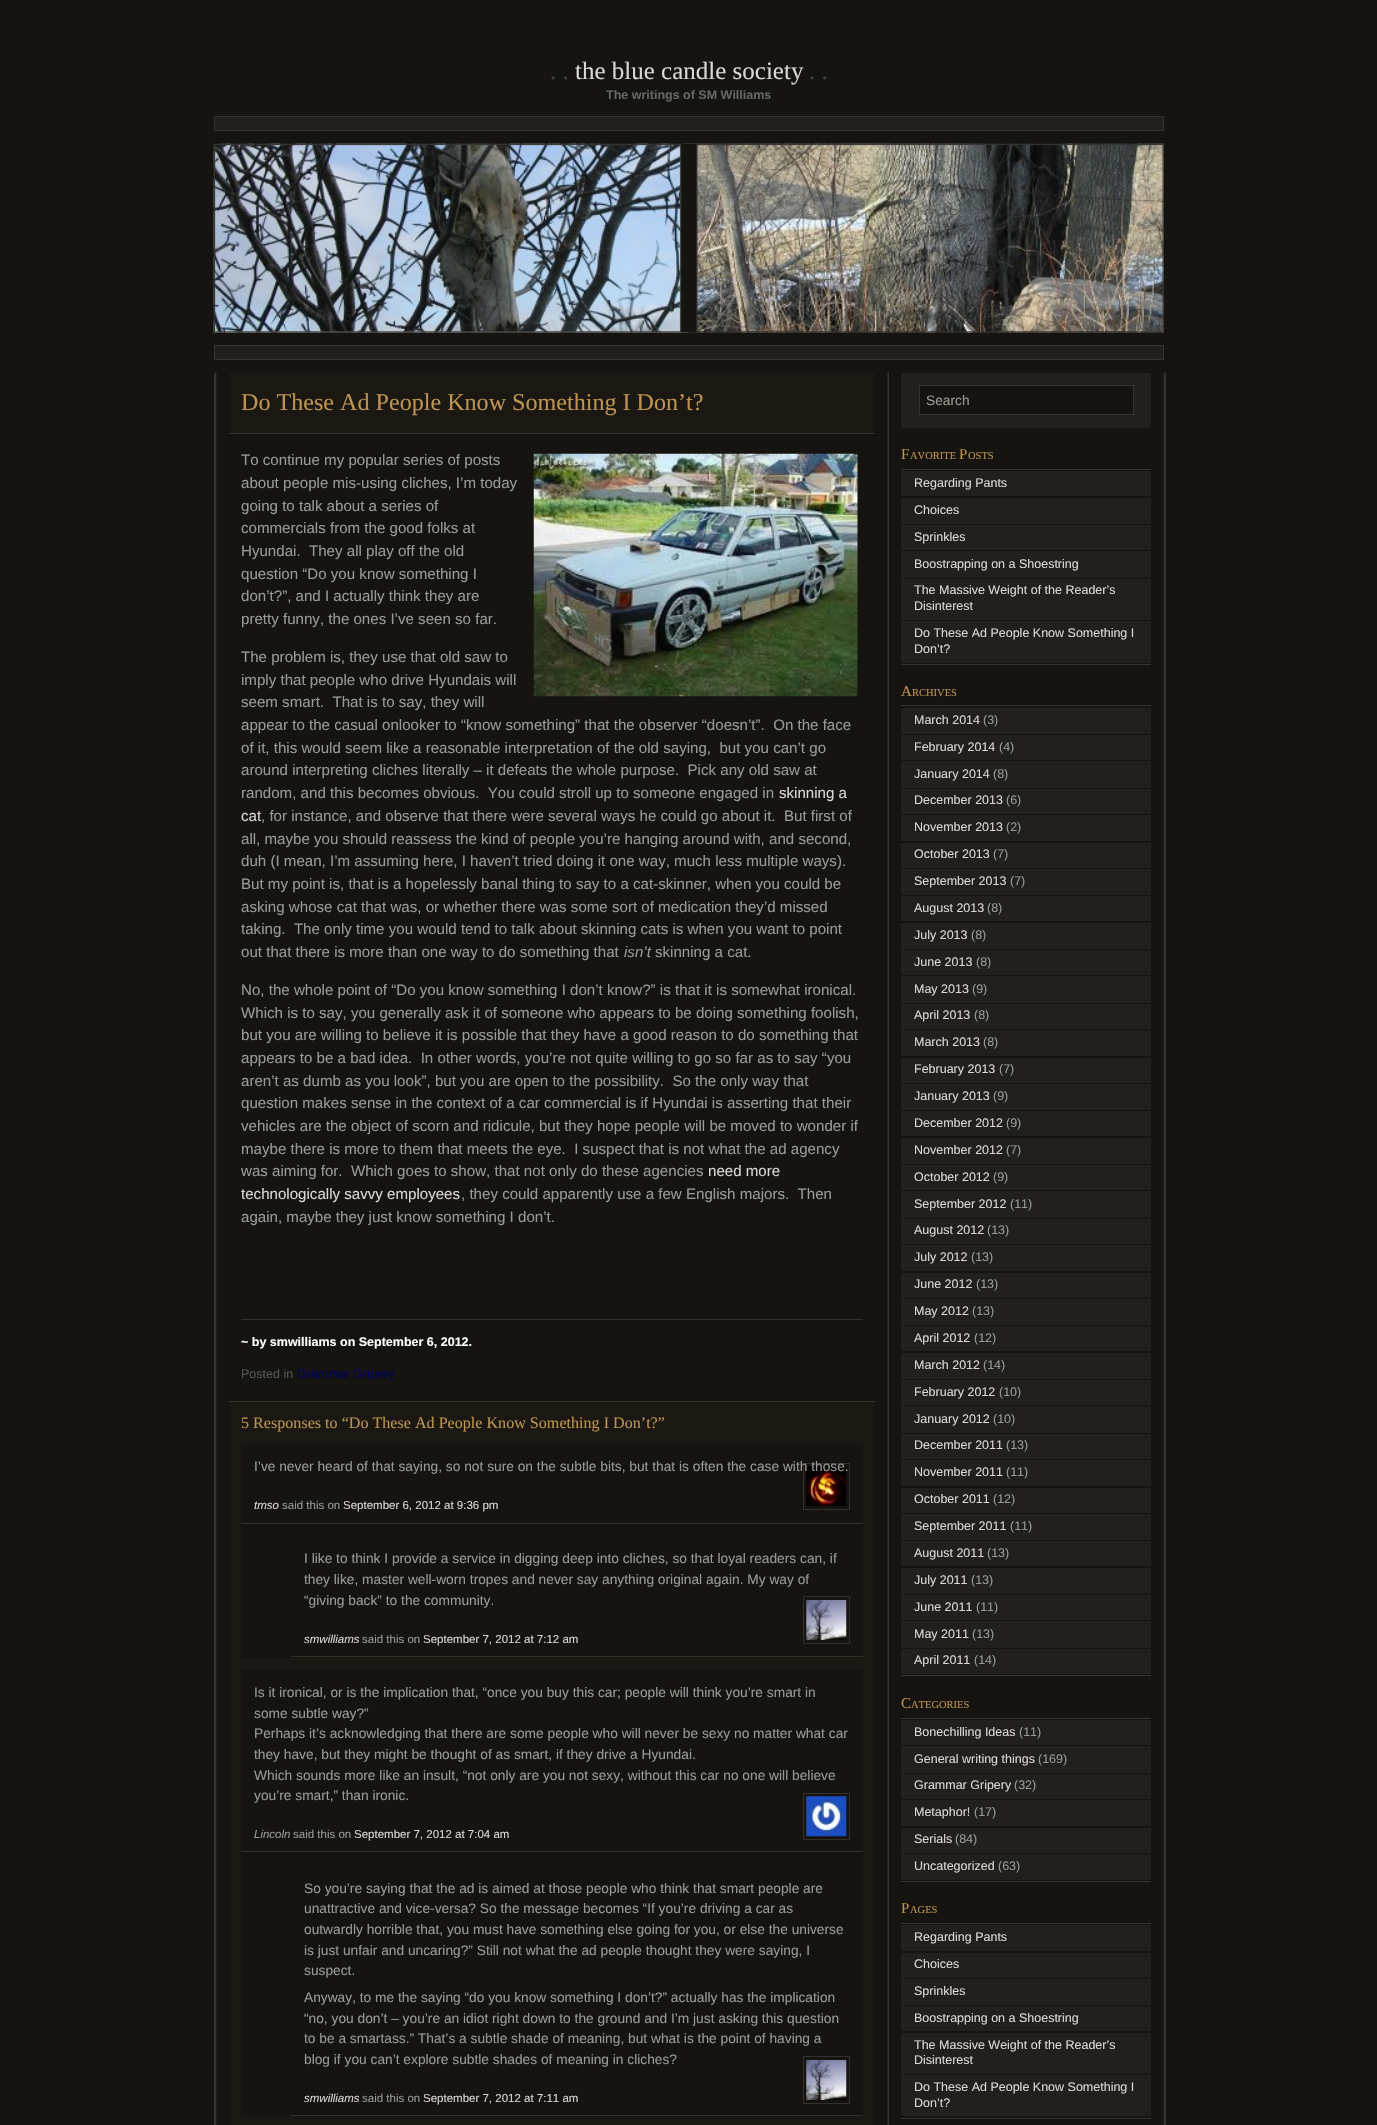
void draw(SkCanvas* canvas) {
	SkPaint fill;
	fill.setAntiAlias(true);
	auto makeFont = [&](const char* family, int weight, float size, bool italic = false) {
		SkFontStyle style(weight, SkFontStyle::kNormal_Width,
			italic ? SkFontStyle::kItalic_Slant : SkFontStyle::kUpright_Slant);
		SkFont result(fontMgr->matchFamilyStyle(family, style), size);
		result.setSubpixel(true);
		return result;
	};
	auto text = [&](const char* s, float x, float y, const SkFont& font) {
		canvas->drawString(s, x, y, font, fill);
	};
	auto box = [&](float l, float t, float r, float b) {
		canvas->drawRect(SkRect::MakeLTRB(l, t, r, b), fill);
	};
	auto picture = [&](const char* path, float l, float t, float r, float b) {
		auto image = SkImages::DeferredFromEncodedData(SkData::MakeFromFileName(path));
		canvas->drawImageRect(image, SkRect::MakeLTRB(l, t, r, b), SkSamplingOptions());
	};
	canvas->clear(0xFF161410);
	fill.setColor(0xFF22201D);
	canvas->drawRect(SkRect::MakeLTRB(214.5f, 116.5f, 1163.5f, 130.5f), fill);
	fill.setStyle(SkPaint::kStroke_Style);
	fill.setStrokeWidth(1);
	fill.setColor(0xFF363430);
	canvas->drawRect(SkRect::MakeLTRB(214.5f, 116.5f, 1163.5f, 130.5f), fill);
	picture("image0.png", 213, 143, 1164, 333);
	picture("image1.png", 213, 143, 1164, 333);
	fill.setStyle(SkPaint::kFill_Style);
	fill.setColor(0xFF22201D);
	canvas->drawRect(SkRect::MakeLTRB(214.5f, 345.5f, 1163.5f, 359.5f), fill);
	fill.setStyle(SkPaint::kStroke_Style);
	fill.setColor(0xFF363430);
	canvas->drawRect(SkRect::MakeLTRB(214.5f, 345.5f, 1163.5f, 359.5f), fill);
	picture("image2.png", 215, 372, 1165, 2125);
	fill.setStyle(SkPaint::kFill_Style);
	box(1165, 373, 1166, 2125);
	box(214, 373, 215, 2125);
	box(888, 373, 889, 2125);
	fill.setColor(0xFF1B1814);
	box(229, 373, 875, 433);
	fill.setColor(0xFF35302A);
	box(229, 433, 875, 434);
	picture("image3.png", 533, 453, 858, 697);
	box(241, 1319, 863, 1320);
	fill.setColor(0xFF1B1814);
	box(229, 1402, 875, 2125);
	fill.setColor(0xFF35302A);
	box(229, 1401, 875, 1402);
	fill.setColor(0xFF161410);
	box(241, 1444, 863, 1658);
	fill.setColor(0xFF35302A);
	box(241, 1523, 863, 1524);
	fill.setStyle(SkPaint::kStroke_Style);
	canvas->drawRect(SkRect::MakeLTRB(803.5f, 1463.5f, 849.5f, 1509.5f), fill);
	picture("image4.png", 806, 1466, 847, 1507);
	fill.setStyle(SkPaint::kFill_Style);
	box(291, 1656, 863, 1657);
	fill.setStyle(SkPaint::kStroke_Style);
	canvas->drawRect(SkRect::MakeLTRB(803.5f, 1596.5f, 849.5f, 1643.5f), fill);
	picture("image5.png", 806, 1600, 847, 1640);
	fill.setStyle(SkPaint::kFill_Style);
	fill.setColor(0xFF161410);
	box(241, 1670, 863, 2116);
	fill.setColor(0xFF35302A);
	box(241, 1851, 863, 1852);
	fill.setStyle(SkPaint::kStroke_Style);
	canvas->drawRect(SkRect::MakeLTRB(803.5f, 1793.5f, 849.5f, 1839.5f), fill);
	picture("image6.png", 806, 1796, 847, 1837);
	fill.setStyle(SkPaint::kFill_Style);
	box(291, 2115, 863, 2116);
	fill.setStyle(SkPaint::kStroke_Style);
	canvas->drawRect(SkRect::MakeLTRB(803.5f, 2056.5f, 849.5f, 2103.5f), fill);
	picture("image5.png", 806, 2060, 847, 2100);
	fill.setStyle(SkPaint::kFill_Style);
	fill.setColor(0xFF22201D);
	box(901, 373, 1151, 428);
	fill.setColor(0xFF161410);
	canvas->drawRect(SkRect::MakeLTRB(919.5f, 385.5f, 1133.5f, 414.5f), fill);
	fill.setStyle(SkPaint::kStroke_Style);
	fill.setColor(0xFF363430);
	canvas->drawRect(SkRect::MakeLTRB(919.5f, 385.5f, 1133.5f, 414.5f), fill);
	fill.setStyle(SkPaint::kFill_Style);
	box(901, 469, 1151, 470);
	box(901, 664, 1151, 665);
	fill.setColor(0xFF22201D);
	box(901, 471, 1151, 496);
	box(901, 498, 1151, 524);
	box(901, 525, 1151, 550);
	box(901, 551, 1151, 578);
	box(901, 579, 1151, 620);
	box(901, 621, 1151, 663);
	fill.setColor(0xFF363430);
	box(901, 705, 1151, 706);
	box(901, 1675, 1151, 1676);
	fill.setColor(0xFF22201D);
	box(901, 708, 1151, 734);
	box(901, 735, 1151, 760);
	box(901, 761, 1151, 788);
	box(901, 789, 1151, 814);
	box(901, 815, 1151, 841);
	box(901, 843, 1151, 868);
	box(901, 869, 1151, 895);
	box(901, 896, 1151, 921);
	box(901, 923, 1151, 949);
	box(901, 950, 1151, 975);
	box(901, 976, 1151, 1003);
	box(901, 1004, 1151, 1029);
	box(901, 1030, 1151, 1056);
	box(901, 1058, 1151, 1083);
	box(901, 1084, 1151, 1110);
	box(901, 1111, 1151, 1136);
	box(901, 1138, 1151, 1164);
	box(901, 1165, 1151, 1190);
	box(901, 1191, 1151, 1218);
	box(901, 1219, 1151, 1244);
	box(901, 1245, 1151, 1271);
	box(901, 1273, 1151, 1298);
	box(901, 1299, 1151, 1325);
	box(901, 1326, 1151, 1351);
	box(901, 1353, 1151, 1379);
	box(901, 1380, 1151, 1405);
	box(901, 1406, 1151, 1433);
	box(901, 1434, 1151, 1459);
	box(901, 1460, 1151, 1486);
	box(901, 1488, 1151, 1513);
	box(901, 1514, 1151, 1540);
	box(901, 1541, 1151, 1566);
	box(901, 1568, 1151, 1594);
	box(901, 1595, 1151, 1620);
	box(901, 1621, 1151, 1648);
	box(901, 1649, 1151, 1674);
	fill.setColor(0xFF363430);
	box(901, 1718, 1151, 1719);
	box(901, 1881, 1151, 1882);
	fill.setColor(0xFF22201D);
	box(901, 1720, 1151, 1745);
	box(901, 1746, 1151, 1773);
	box(901, 1774, 1151, 1799);
	box(901, 1800, 1151, 1826);
	box(901, 1828, 1151, 1853);
	box(901, 1854, 1151, 1880);
	fill.setColor(0xFF363430);
	box(901, 1923, 1151, 1924);
	box(901, 2118, 1151, 2119);
	fill.setColor(0xFF22201D);
	box(901, 1925, 1151, 1951);
	box(901, 1953, 1151, 1978);
	box(901, 1979, 1151, 2005);
	box(901, 2006, 1151, 2031);
	box(901, 2033, 1151, 2074);
	box(901, 2075, 1151, 2116);
	auto font1 = makeFont("Liberation Serif", 400, 25);
	fill.setColor(0xFF444444);
	text(". .", 550, 79, font1);
	fill.setColor(0xFFD8D7D3);
	text("the blue candle society", 575, 79, font1);
	fill.setColor(0xFF444444);
	text(". .", 809, 79, font1);
	auto font2 = makeFont("Liberation Sans", 700, 12.5f);
	fill.setColor(0xFF666666);
	text("The writings of SM Williams", 606, 99, font2);
	auto font3 = makeFont("Liberation Serif", 400, 24.1f);
	fill.setColor(0xFFBD934F);
	text("Do These Ad People Know Something I Don’t?", 241, 410, font3);
	auto font4 = makeFont("Liberation Sans", 400, 15.1f);
	fill.setColor(0xFF999999);
	text("To continue my popular series of posts", 241, 465, font4);
	text("about people mis-using cliches, I’m today", 241, 488, font4);
	text("going to talk about a series of", 241, 511, font4);
	text("commercials from the good folks at", 241, 533, font4);
	text("Hyundai.  They all play off the old", 241, 556, font4);
	text("question “Do you know something I", 241, 579, font4);
	text("don’t?”, and I actually think they are", 241, 601, font4);
	text("pretty funny, the ones I’ve seen so far.", 241, 624, font4);
	text("The problem is, they use that old saw to", 241, 662, font4);
	text("imply that people who drive Hyundais will", 241, 685, font4);
	text("seem smart.  That is to say, they will", 241, 707, font4);
	text("appear to the casual onlooker to “know something” that the observer “doesn’t”.  On the face", 241, 730, font4);
	text("of it, this would seem like a reasonable interpretation of the old saying,  but you can’t go", 241, 753, font4);
	text("around interpreting cliches literally – it defeats the whole purpose.  Pick any old saw at", 241, 775, font4);
	text("random, and this becomes obvious.  You could stroll up to someone engaged in", 241, 798, font4);
	fill.setColor(0xFFD8D7D3);
	text("skinning a", 779, 798, font4);
	text("cat", 241, 821, font4);
	fill.setColor(0xFF999999);
	text(", for instance, and observe that there were several ways he could go about it.  But first of", 261, 821, font4);
	text("all, maybe you should reassess the kind of people you’re hanging around with, and second,", 241, 844, font4);
	text("duh (I mean, I’m assuming here, I haven’t tried doing it one way, much less multiple ways).", 241, 866, font4);
	text("But my point is, that is a hopelessly banal thing to say to a cat-skinner, when you could be", 241, 889, font4);
	text("asking whose cat that was, or whether there was some sort of medication they’d missed", 241, 912, font4);
	text("taking.  The only time you would tend to talk about skinning cats is when you want to point", 241, 934, font4);
	text("out that there is more than one way to do something that", 241, 957, font4);
	auto font5 = makeFont("Liberation Sans", 400, 15.1f, true);
	text("isn’t", 624, 957, font5);
	text("skinning a cat.", 655, 957, font4);
	text("No, the whole point of “Do you know something I don’t know?” is that it is somewhat ironical.", 241, 995, font4);
	text("Which is to say, you generally ask it of someone who appears to be doing something foolish,", 241, 1018, font4);
	text("but you are willing to believe it is possible that they have a good reason to do something that", 241, 1040, font4);
	text("appears to be a bad idea.  In other words, you’re not quite willing to go so far as to say “you", 241, 1063, font4);
	text("aren’t as dumb as you look”, but you are open to the possibility.  So the only way that", 241, 1086, font4);
	text("question makes sense in the context of a car commercial is if Hyundai is asserting that their", 241, 1108, font4);
	text("vehicles are the object of scorn and ridicule, but they hope people will be moved to wonder if", 241, 1131, font4);
	text("maybe there is more to them that meets the eye.  I suspect that is not what the ad agency", 241, 1154, font4);
	text("was aiming for.  Which goes to show, that not only do these agencies", 241, 1176, font4);
	fill.setColor(0xFFD8D7D3);
	text("need more", 708, 1176, font4);
	text("technologically savvy employees", 241, 1199, font4);
	fill.setColor(0xFF999999);
	text(", they could apparently use a few English majors.  Then", 461, 1199, font4);
	text("again, maybe they just know something I don’t.", 241, 1222, font4);
	fill.setColor(0xFFFFFFFF);
	text("~ by smwilliams on September 6, 2012.", 241, 1346, font2);
	auto font6 = makeFont("Liberation Sans", 400, 12.5f);
	fill.setColor(0xFF555555);
	text("Posted in", 241, 1378, font6);
	fill.setColor(0xFF000066);
	text("Grammar Gripery", 297, 1378, font6);
	auto font7 = makeFont("Liberation Serif", 400, 16.1f);
	fill.setColor(0xFFBD934F);
	text("5 Responses to “Do These Ad People Know Something I Don’t?”", 241, 1428, font7);
	auto font8 = makeFont("Liberation Sans", 400, 13.75f);
	fill.setColor(0xFF999999);
	text("I’ve never heard of that saying, so not sure on the subtle bits, but that is often the case with those.", 254, 1471, font8);
	auto font9 = makeFont("Liberation Sans", 400, 11.5f, true);
	fill.setColor(0xFFD8D7D3);
	text("tmso", 254, 1509, font9);
	auto font10 = makeFont("Liberation Sans", 400, 11.5f);
	fill.setColor(0xFF999999);
	text("said this on", 282, 1509, font10);
	fill.setColor(0xFFD8D7D3);
	text("September 6, 2012 at 9:36 pm", 343, 1509, font10);
	fill.setColor(0xFF999999);
	text("I like to think I provide a service in digging deep into cliches, so that loyal readers can, if", 304, 1563, font8);
	text("they like, master well-worn tropes and never say anything original again. My way of", 304, 1584, font8);
	text("“giving back” to the community.", 304, 1605, font8);
	fill.setColor(0xFFD8D7D3);
	text("smwilliams", 304, 1643, font9);
	fill.setColor(0xFF999999);
	text("said this on", 362, 1643, font10);
	fill.setColor(0xFFD8D7D3);
	text("September 7, 2012 at 7:12 am", 423, 1643, font10);
	fill.setColor(0xFF999999);
	text("Is it ironical, or is the implication that, “once you buy this car; people will think you’re smart in", 254, 1697, font8);
	text("some subtle way?”", 254, 1718, font8);
	text("Perhaps it’s acknowledging that there are some people who will never be sexy no matter what car", 254, 1738, font8);
	text("they have, but they might be thought of as smart, if they drive a Hyundai.", 254, 1759, font8);
	text("Which sounds more like an insult, “not only are you not sexy, without this car no one will believe", 254, 1780, font8);
	text("you’re smart,” than ironic.", 254, 1800, font8);
	text("Lincoln", 254, 1838, font9);
	text("said this on", 293, 1838, font10);
	fill.setColor(0xFFD8D7D3);
	text("September 7, 2012 at 7:04 am", 354, 1838, font10);
	fill.setColor(0xFF999999);
	text("So you’re saying that the ad is aimed at those people who think that smart people are", 304, 1893, font8);
	text("unattractive and vice-versa? So the message becomes “If you’re driving a car as", 304, 1913, font8);
	text("outwardly horrible that, you must have something else going for you, or else the universe", 304, 1934, font8);
	text("is just unfair and uncaring?” Still not what the ad people thought they were saying, I", 304, 1955, font8);
	text("suspect.", 304, 1975, font8);
	text("Anyway, to me the saying “do you know something I don’t?” actually has the implication", 304, 2002, font8);
	text("“no, you don’t – you’re an idiot right down to the ground and I’m just asking this question", 304, 2023, font8);
	text("to be a smartass.” That’s a subtle shade of meaning, but what is the point of having a", 304, 2043, font8);
	text("blog if you can’t explore subtle shades of meaning in cliches?", 304, 2064, font8);
	fill.setColor(0xFFD8D7D3);
	text("smwilliams", 304, 2102, font9);
	fill.setColor(0xFF999999);
	text("said this on", 362, 2102, font10);
	fill.setColor(0xFFD8D7D3);
	text("September 7, 2012 at 7:11 am", 423, 2102, font10);
	fill.setColor(0xFF9C9890);
	text("Search", 926, 405, font8);
	auto font11 = makeFont("Liberation Serif", 400, 15);
	fill.setColor(0xFFBD934F);
	text("F", 901, 459, font11);
	auto font12 = makeFont("Liberation Serif", 400, 10.5f);
	text("AVORITE", 910, 459, font12);
	text("P", 959, 459, font11);
	text("OSTS", 968, 459, font12);
	fill.setColor(0xFFD8D7D3);
	text("Regarding Pants", 914, 487, font6);
	text("Choices", 914, 514, font6);
	text("Sprinkles", 914, 541, font6);
	text("Boostrapping on a Shoestring", 914, 568, font6);
	text("The Massive Weight of the Reader’s", 914, 594, font6);
	text("Disinterest", 914, 610, font6);
	text("Do These Ad People Know Something I", 914, 637, font6);
	text("Don’t?", 914, 653, font6);
	fill.setColor(0xFFBD934F);
	text("A", 901, 696, font11);
	text("RCHIVES", 912, 696, font12);
	fill.setColor(0xFFD8D7D3);
	text("March 2014", 914, 724, font6);
	fill.setColor(0xFF999999);
	text("(3)", 983, 724, font6);
	fill.setColor(0xFFD8D7D3);
	text("February 2014", 914, 751, font6);
	fill.setColor(0xFF999999);
	text("(4)", 999, 751, font6);
	fill.setColor(0xFFD8D7D3);
	text("January 2014", 914, 778, font6);
	fill.setColor(0xFF999999);
	text("(8)", 993, 778, font6);
	fill.setColor(0xFFD8D7D3);
	text("December 2013", 914, 804, font6);
	fill.setColor(0xFF999999);
	text("(6)", 1006, 804, font6);
	fill.setColor(0xFFD8D7D3);
	text("November 2013", 914, 831, font6);
	fill.setColor(0xFF999999);
	text("(2)", 1006, 831, font6);
	fill.setColor(0xFFD8D7D3);
	text("October 2013", 914, 858, font6);
	fill.setColor(0xFF999999);
	text("(7)", 993, 858, font6);
	fill.setColor(0xFFD8D7D3);
	text("September 2013", 914, 885, font6);
	fill.setColor(0xFF999999);
	text("(7)", 1010, 885, font6);
	fill.setColor(0xFFD8D7D3);
	text("August 2013", 914, 912, font6);
	fill.setColor(0xFF999999);
	text("(8)", 987, 912, font6);
	fill.setColor(0xFFD8D7D3);
	text("July 2013", 914, 939, font6);
	fill.setColor(0xFF999999);
	text("(8)", 971, 939, font6);
	fill.setColor(0xFFD8D7D3);
	text("June 2013", 914, 966, font6);
	fill.setColor(0xFF999999);
	text("(8)", 976, 966, font6);
	fill.setColor(0xFFD8D7D3);
	text("May 2013", 914, 993, font6);
	fill.setColor(0xFF999999);
	text("(9)", 972, 993, font6);
	fill.setColor(0xFFD8D7D3);
	text("April 2013", 914, 1019, font6);
	fill.setColor(0xFF999999);
	text("(8)", 974, 1019, font6);
	fill.setColor(0xFFD8D7D3);
	text("March 2013", 914, 1046, font6);
	fill.setColor(0xFF999999);
	text("(8)", 983, 1046, font6);
	fill.setColor(0xFFD8D7D3);
	text("February 2013", 914, 1073, font6);
	fill.setColor(0xFF999999);
	text("(7)", 999, 1073, font6);
	fill.setColor(0xFFD8D7D3);
	text("January 2013", 914, 1100, font6);
	fill.setColor(0xFF999999);
	text("(9)", 993, 1100, font6);
	fill.setColor(0xFFD8D7D3);
	text("December 2012", 914, 1127, font6);
	fill.setColor(0xFF999999);
	text("(9)", 1006, 1127, font6);
	fill.setColor(0xFFD8D7D3);
	text("November 2012", 914, 1154, font6);
	fill.setColor(0xFF999999);
	text("(7)", 1006, 1154, font6);
	fill.setColor(0xFFD8D7D3);
	text("October 2012", 914, 1181, font6);
	fill.setColor(0xFF999999);
	text("(9)", 993, 1181, font6);
	fill.setColor(0xFFD8D7D3);
	text("September 2012", 914, 1208, font6);
	fill.setColor(0xFF999999);
	text("(11)", 1010, 1208, font6);
	fill.setColor(0xFFD8D7D3);
	text("August 2012", 914, 1234, font6);
	fill.setColor(0xFF999999);
	text("(13)", 987, 1234, font6);
	fill.setColor(0xFFD8D7D3);
	text("July 2012", 914, 1261, font6);
	fill.setColor(0xFF999999);
	text("(13)", 971, 1261, font6);
	fill.setColor(0xFFD8D7D3);
	text("June 2012", 914, 1288, font6);
	fill.setColor(0xFF999999);
	text("(13)", 976, 1288, font6);
	fill.setColor(0xFFD8D7D3);
	text("May 2012", 914, 1315, font6);
	fill.setColor(0xFF999999);
	text("(13)", 972, 1315, font6);
	fill.setColor(0xFFD8D7D3);
	text("April 2012", 914, 1342, font6);
	fill.setColor(0xFF999999);
	text("(12)", 974, 1342, font6);
	fill.setColor(0xFFD8D7D3);
	text("March 2012", 914, 1369, font6);
	fill.setColor(0xFF999999);
	text("(14)", 983, 1369, font6);
	fill.setColor(0xFFD8D7D3);
	text("February 2012", 914, 1396, font6);
	fill.setColor(0xFF999999);
	text("(10)", 999, 1396, font6);
	fill.setColor(0xFFD8D7D3);
	text("January 2012", 914, 1423, font6);
	fill.setColor(0xFF999999);
	text("(10)", 993, 1423, font6);
	fill.setColor(0xFFD8D7D3);
	text("December 2011", 914, 1449, font6);
	fill.setColor(0xFF999999);
	text("(13)", 1006, 1449, font6);
	fill.setColor(0xFFD8D7D3);
	text("November 2011", 914, 1476, font6);
	fill.setColor(0xFF999999);
	text("(11)", 1006, 1476, font6);
	fill.setColor(0xFFD8D7D3);
	text("October 2011", 914, 1503, font6);
	fill.setColor(0xFF999999);
	text("(12)", 993, 1503, font6);
	fill.setColor(0xFFD8D7D3);
	text("September 2011", 914, 1530, font6);
	fill.setColor(0xFF999999);
	text("(11)", 1010, 1530, font6);
	fill.setColor(0xFFD8D7D3);
	text("August 2011", 914, 1557, font6);
	fill.setColor(0xFF999999);
	text("(13)", 987, 1557, font6);
	fill.setColor(0xFFD8D7D3);
	text("July 2011", 914, 1584, font6);
	fill.setColor(0xFF999999);
	text("(13)", 971, 1584, font6);
	fill.setColor(0xFFD8D7D3);
	text("June 2011", 914, 1611, font6);
	fill.setColor(0xFF999999);
	text("(11)", 976, 1611, font6);
	fill.setColor(0xFFD8D7D3);
	text("May 2011", 914, 1638, font6);
	fill.setColor(0xFF999999);
	text("(13)", 972, 1638, font6);
	fill.setColor(0xFFD8D7D3);
	text("April 2011", 914, 1664, font6);
	fill.setColor(0xFF999999);
	text("(14)", 974, 1664, font6);
	fill.setColor(0xFFBD934F);
	text("C", 901, 1708, font11);
	text("ATEGORIES", 911, 1708, font12);
	fill.setColor(0xFFD8D7D3);
	text("Bonechilling Ideas", 914, 1736, font6);
	fill.setColor(0xFF999999);
	text("(11)", 1019, 1736, font6);
	fill.setColor(0xFFD8D7D3);
	text("General writing things", 914, 1763, font6);
	fill.setColor(0xFF999999);
	text("(169)", 1038, 1763, font6);
	fill.setColor(0xFFD8D7D3);
	text("Grammar Gripery", 914, 1789, font6);
	fill.setColor(0xFF999999);
	text("(32)", 1014, 1789, font6);
	fill.setColor(0xFFD8D7D3);
	text("Metaphor!", 914, 1816, font6);
	fill.setColor(0xFF999999);
	text("(17)", 974, 1816, font6);
	fill.setColor(0xFFD8D7D3);
	text("Serials", 914, 1843, font6);
	fill.setColor(0xFF999999);
	text("(84)", 955, 1843, font6);
	fill.setColor(0xFFD8D7D3);
	text("Uncategorized", 914, 1870, font6);
	fill.setColor(0xFF999999);
	text("(63)", 998, 1870, font6);
	fill.setColor(0xFFBD934F);
	text("P", 901, 1913, font11);
	text("AGES", 910, 1913, font12);
	fill.setColor(0xFFD8D7D3);
	text("Regarding Pants", 914, 1941, font6);
	text("Choices", 914, 1968, font6);
	text("Sprinkles", 914, 1995, font6);
	text("Boostrapping on a Shoestring", 914, 2022, font6);
	text("The Massive Weight of the Reader’s", 914, 2049, font6);
	text("Disinterest", 914, 2064, font6);
	text("Do These Ad People Know Something I", 914, 2091, font6);
	text("Don’t?", 914, 2107, font6);
}
